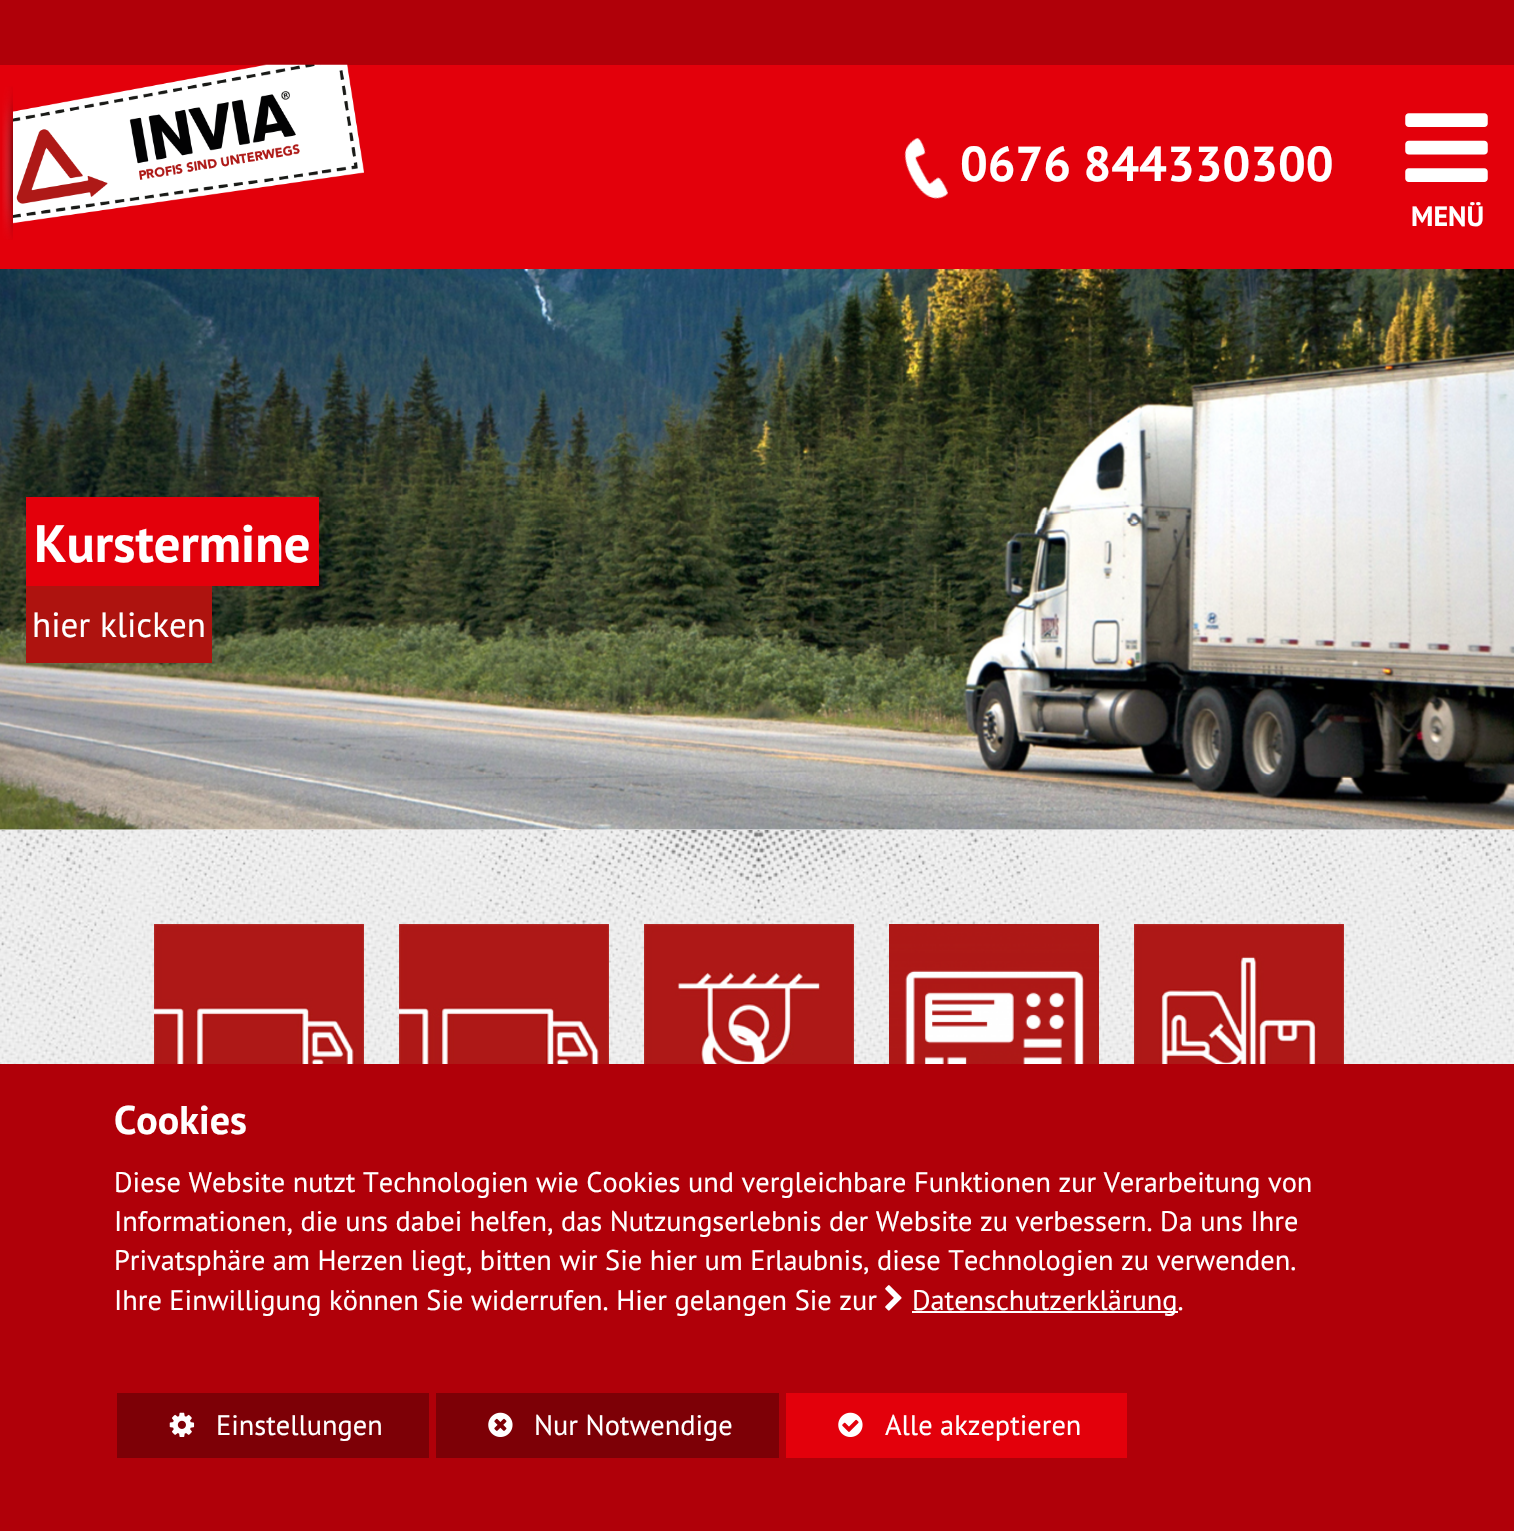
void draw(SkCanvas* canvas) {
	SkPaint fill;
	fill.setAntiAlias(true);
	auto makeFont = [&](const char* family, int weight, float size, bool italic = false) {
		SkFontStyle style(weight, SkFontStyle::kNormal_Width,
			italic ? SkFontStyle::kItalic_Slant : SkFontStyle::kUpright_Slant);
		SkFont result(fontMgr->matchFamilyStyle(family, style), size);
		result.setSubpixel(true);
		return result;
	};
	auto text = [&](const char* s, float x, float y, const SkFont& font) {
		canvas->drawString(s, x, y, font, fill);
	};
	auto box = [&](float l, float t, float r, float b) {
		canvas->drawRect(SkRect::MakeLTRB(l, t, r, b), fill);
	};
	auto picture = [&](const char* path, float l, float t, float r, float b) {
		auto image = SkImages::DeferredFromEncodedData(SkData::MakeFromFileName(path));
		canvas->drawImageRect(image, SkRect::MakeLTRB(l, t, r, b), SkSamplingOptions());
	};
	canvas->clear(0xFFE3000B);
	fill.setColor(0xFFB00009);
	box(0, 0, 1514, 65);
	picture("image0.png", 2, 64, 364, 240);
	picture("image1.png", 904, 137, 948, 199);
	picture("image2.png", 1405, 113, 1488, 182);
	fill.setColor(0xFFFFFFFF);
	box(0, 829, 1514, 830);
	picture("image3.png", 0, 269, 1514, 830);
	fill.setColor(0xFFE3000B);
	box(26, 497, 319, 586);
	fill.setColor(0xFFAE130F);
	box(26, 586, 212, 663);
	picture("image4.png", 0, 830, 1514, 1064);
	picture("image5.png", 154, 924, 364, 1064);
	picture("image5.png", 399, 924, 609, 1064);
	picture("image6.png", 644, 924, 854, 1064);
	picture("image7.png", 889, 924, 1099, 1064);
	picture("image8.png", 1134, 924, 1344, 1064);
	fill.setColor(0xFFB00009);
	box(0, 1064, 1514, 1531);
	picture("image9.png", 885, 1285, 902, 1311);
	fill.setColor(0xFFFFFFFF);
	box(912, 1311, 1178, 1313);
	fill.setColor(0xFF7D0006);
	box(117, 1393, 429, 1458);
	picture("image10.png", 169, 1412, 195, 1437);
	box(436, 1393, 779, 1458);
	picture("image11.png", 488, 1412, 513, 1437);
	fill.setColor(0xFFE3000B);
	box(786, 1393, 1127, 1458);
	picture("image12.png", 838, 1412, 863, 1437);
	auto font1 = makeFont("PT Sans", 700, 49);
	fill.setColor(0xFFFFFFFF);
	text("0676 844330300", 960, 181, font1);
	auto font2 = makeFont("PT Sans", 700, 28);
	text("MENÜ", 1411, 226, font2);
	auto font3 = makeFont("PT Sans", 700, 52.5f);
	text("Kurstermine", 34, 562, font3);
	auto font4 = makeFont("PT Sans", 400, 35);
	text("hier", 32, 637, font4);
	text("klicken", 100, 637, font4);
	auto font5 = makeFont("PT Sans", 700, 40);
	text("Cookies", 114, 1134, font5);
	auto font6 = makeFont("PT Sans", 400, 28.35f);
	text("Diese Website nutzt Technologien wie Cookies und vergleichbare Funktionen zur Verarbeitung von", 114, 1192, font6);
	text("Informationen, die uns dabei helfen, das Nutzungserlebnis der Website zu verbessern. Da uns Ihre", 114, 1231, font6);
	text("Privatsphäre am Herzen liegt, bitten wir Sie hier um Erlaubnis, diese Technologien zu verwenden.", 114, 1270, font6);
	text("Ihre Einwilligung können Sie widerrufen. Hier gelangen Sie zur", 114, 1310, font6);
	text("Datenschutzerklärung.", 912, 1310, font6);
	text("Einstellungen", 216, 1435, font6);
	text("Nur Notwendige", 534, 1435, font6);
	text("Alle akzeptieren", 885, 1435, font6);
}
